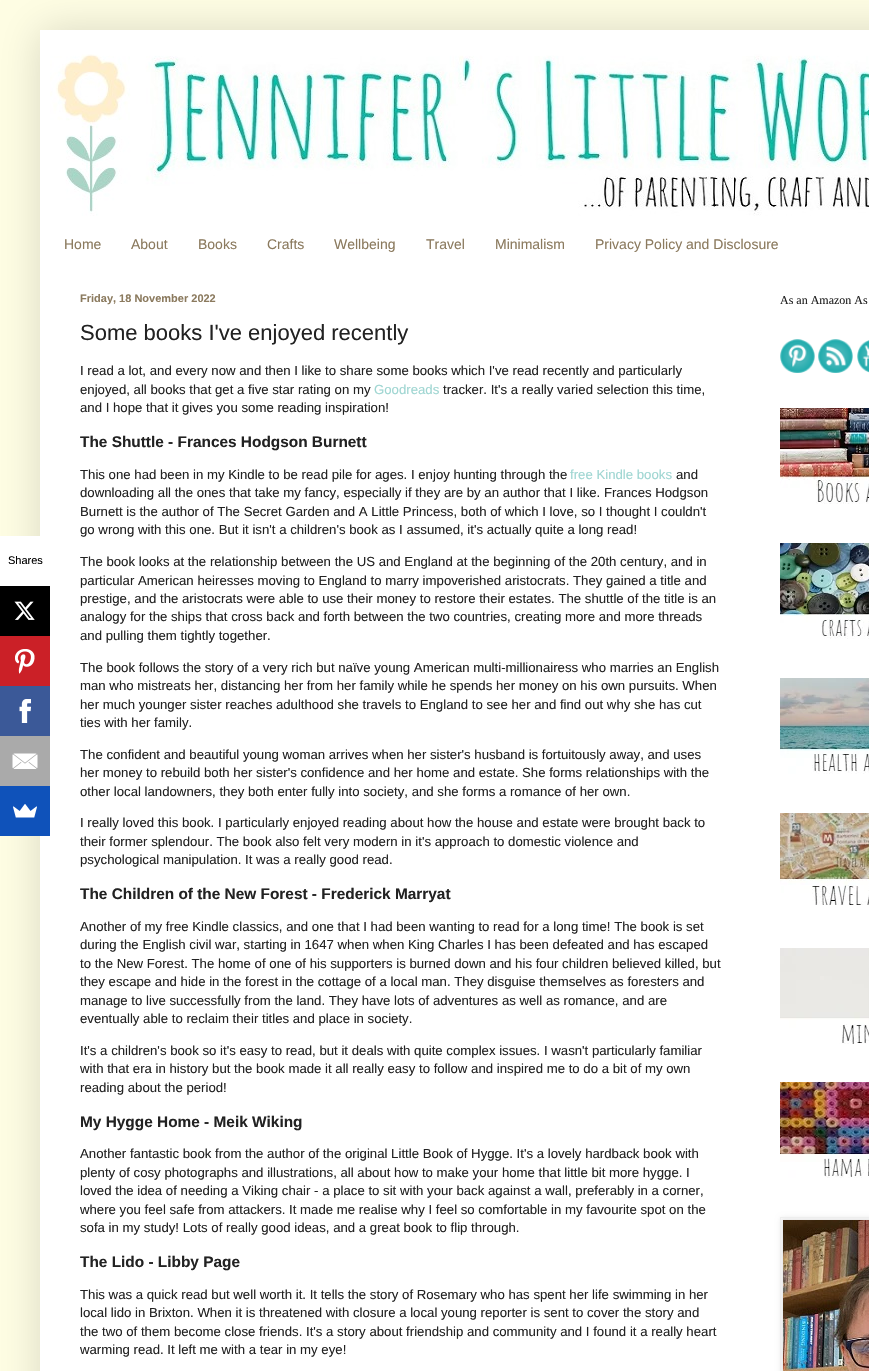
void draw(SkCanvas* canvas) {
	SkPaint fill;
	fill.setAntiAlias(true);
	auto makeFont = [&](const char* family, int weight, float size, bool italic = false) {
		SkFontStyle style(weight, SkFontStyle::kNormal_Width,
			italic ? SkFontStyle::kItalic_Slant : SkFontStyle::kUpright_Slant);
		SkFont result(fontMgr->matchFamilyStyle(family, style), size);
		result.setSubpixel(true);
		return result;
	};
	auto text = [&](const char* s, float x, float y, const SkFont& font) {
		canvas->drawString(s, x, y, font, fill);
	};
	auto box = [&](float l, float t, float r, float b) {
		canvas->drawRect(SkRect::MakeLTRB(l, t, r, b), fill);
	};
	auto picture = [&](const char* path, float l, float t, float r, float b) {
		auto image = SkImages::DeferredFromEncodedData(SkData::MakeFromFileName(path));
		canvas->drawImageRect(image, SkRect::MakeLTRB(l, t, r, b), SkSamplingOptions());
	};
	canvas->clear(0xFFFFFEE4);
	fill.setColor(0x26000000);
	fill.setMaskFilter(SkMaskFilter::MakeBlur(kNormal_SkBlurStyle, 20));
	canvas->drawRect(SkRect::MakeLTRB(40, 30, 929, 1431), fill);
	fill.setMaskFilter(nullptr);
	fill.setColor(0xFFFFFFFF);
	box(0, 536, 40, 586);
	box(40, 30, 869, 1371);
	fill.setColor(0xFF000000);
	box(0, 586, 50, 636);
	picture("image0.png", 14, 601, 35, 620);
	fill.setColor(0xFFCB2027);
	box(0, 636, 50, 686);
	picture("image1.png", 15, 649, 35, 674);
	fill.setColor(0xFF3B5998);
	box(0, 686, 50, 736);
	picture("image2.png", 19, 699, 31, 723);
	fill.setColor(0xFFAAAAAA);
	box(0, 736, 50, 786);
	picture("image3.png", 12, 753, 38, 769);
	fill.setColor(0xFF0F52BA);
	box(0, 786, 50, 836);
	picture("image4.png", 13, 804, 37, 818);
	picture("image5.png", 50, 54, 869, 216);
	picture("image6.png", 780, 339, 815, 373);
	picture("image7.png", 818, 339, 853, 373);
	picture("image8.png", 857, 340, 869, 373);
	picture("image9.png", 780, 408, 869, 504);
	picture("image10.png", 780, 543, 869, 639);
	picture("image11.png", 780, 678, 869, 774);
	picture("image12.png", 780, 813, 869, 905);
	picture("image13.png", 780, 948, 869, 1044);
	picture("image14.png", 780, 1082, 869, 1178);
	fill.setColor(0x1A000000);
	fill.setMaskFilter(SkMaskFilter::MakeBlur(kNormal_SkBlurStyle, 2.5f));
	canvas->drawRect(SkRect::MakeLTRB(781, 1218, 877, 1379), fill);
	fill.setMaskFilter(nullptr);
	fill.setStyle(SkPaint::kStroke_Style);
	fill.setStrokeWidth(1);
	fill.setColor(0xFFEEEEEE);
	canvas->drawRect(SkRect::MakeLTRB(780.5f, 1217.5f, 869.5f, 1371.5f), fill);
	picture("image15.png", 783, 1220, 869, 1371);
	auto font1 = makeFont("Liberation Sans", 400, 11);
	fill.setStyle(SkPaint::kFill_Style);
	fill.setColor(0xFF000000);
	text("Shares", 8, 564, font1);
	auto font2 = makeFont("Liberation Sans", 400, 14);
	fill.setColor(0xFF8B7A5E);
	text("Home", 64, 249, font2);
	text("About", 131, 249, font2);
	text("Books", 198, 249, font2);
	text("Crafts", 267, 249, font2);
	text("Wellbeing", 334, 249, font2);
	text("Travel", 426, 249, font2);
	text("Minimalism", 495, 249, font2);
	text("Privacy Policy and Disclosure", 595, 249, font2);
	auto font3 = makeFont("Liberation Sans", 700, 11);
	text("Friday, 18 November 2022", 80, 302, font3);
	auto font4 = makeFont("Liberation Sans", 400, 22);
	fill.setColor(0xFF222222);
	text("Some books I've enjoyed recently", 80, 340, font4);
	auto font5 = makeFont("Liberation Sans", 400, 13.2f);
	text("I read a lot, and every now and then I like to share some books which I've read recently and particularly", 80, 375, font5);
	text("enjoyed, all books that get a five star rating on my", 80, 394, font5);
	fill.setColor(0xFF9FD6D2);
	text("Goodreads", 374, 394, font5);
	fill.setColor(0xFF222222);
	text("tracker. It's a really varied selection this time,", 443, 394, font5);
	text("and I hope that it gives you some reading inspiration!", 80, 412, font5);
	auto font6 = makeFont("Liberation Sans", 700, 15.4f);
	text("The Shuttle - Frances Hodgson Burnett", 80, 447, font6);
	text("This one had been in my Kindle to be read pile for ages. I enjoy hunting through the", 80, 479, font5);
	fill.setColor(0xFF9FD6D2);
	text("free Kindle books", 570, 479, font5);
	fill.setColor(0xFF222222);
	text("and", 676, 479, font5);
	text("downloading all the ones that take my fancy, especially if they are by an author that I like. Frances Hodgson", 80, 497, font5);
	text("Burnett is the author of The Secret Garden and A Little Princess, both of which I love, so I thought I couldn't", 80, 516, font5);
	text("go wrong with this one. But it isn't a children's book as I assumed, it's actually quite a long read!", 80, 534, font5);
	text("The book looks at the relationship between the US and England at the beginning of the 20th century, and in", 80, 566, font5);
	text("particular American heiresses moving to England to marry impoverished aristocrats. They gained a title and", 80, 585, font5);
	text("prestige, and the aristocrats were able to use their money to restore their estates. The shuttle of the title is an", 80, 603, font5);
	text("analogy for the ships that cross back and forth between the two countries, creating more and more threads", 80, 621, font5);
	text("and pulling them tightly together.", 80, 640, font5);
	text("The book follows the story of a very rich but naïve young American multi-millionairess who marries an English", 80, 672, font5);
	text("man who mistreats her, distancing her from her family while he spends her money on his own pursuits. When", 80, 690, font5);
	text("her much younger sister reaches adulthood she travels to England to see her and find out why she has cut", 80, 709, font5);
	text("ties with her family.", 80, 727, font5);
	text("The confident and beautiful young woman arrives when her sister's husband is fortuitously away, and uses", 80, 759, font5);
	text("her money to rebuild both her sister's confidence and her home and estate. She forms relationships with the", 80, 777, font5);
	text("other local landowners, they both enter fully into society, and she forms a romance of her own.", 80, 796, font5);
	text("I really loved this book. I particularly enjoyed reading about how the house and estate were brought back to", 80, 827, font5);
	text("their former splendour. The book also felt very modern in it's approach to domestic violence and", 80, 846, font5);
	text("psychological manipulation. It was a really good read.", 80, 864, font5);
	text("The Children of the New Forest - Frederick Marryat", 80, 899, font6);
	text("Another of my free Kindle classics, and one that I had been wanting to read for a long time! The book is set", 80, 931, font5);
	text("during the English civil war, starting in 1647 when when King Charles I has been defeated and has escaped", 80, 949, font5);
	text("to the New Forest. The home of one of his supporters is burned down and his four children believed killed, but", 80, 968, font5);
	text("they escape and hide in the forest in the cottage of a local man. They disguise themselves as foresters and", 80, 986, font5);
	text("manage to live successfully from the land. They have lots of adventures as well as romance, and are", 80, 1005, font5);
	text("eventually able to reclaim their titles and place in society.", 80, 1023, font5);
	text("It's a children's book so it's easy to read, but it deals with quite complex issues. I wasn't particularly familiar", 80, 1055, font5);
	text("with that era in history but the book made it all really easy to follow and inspired me to do a bit of my own", 80, 1073, font5);
	text("reading about the period!", 80, 1092, font5);
	text("My Hygge Home - Meik Wiking", 80, 1127, font6);
	text("Another fantastic book from the author of the original Little Book of Hygge. It's a lovely hardback book with", 80, 1158, font5);
	text("plenty of cosy photographs and illustrations, all about how to make your home that little bit more hygge. I", 80, 1177, font5);
	text("loved the idea of needing a Viking chair - a place to sit with your back against a wall, preferably in a corner,", 80, 1195, font5);
	text("where you feel safe from attackers. It made me realise why I feel so comfortable in my favourite spot on the", 80, 1214, font5);
	text("sofa in my study! Lots of really good ideas, and a great book to flip through.", 80, 1232, font5);
	text("The Lido - Libby Page", 80, 1267, font6);
	text("This was a quick read but well worth it. It tells the story of Rosemary who has spent her life swimming in her", 80, 1299, font5);
	text("local lido in Brixton. When it is threatened with closure a local young reporter is sent to cover the story and", 80, 1317, font5);
	text("the two of them become close friends. It's a story about friendship and community and I found it a really heart", 80, 1336, font5);
	text("warming read. It left me with a tear in my eye!", 80, 1354, font5);
	auto font7 = makeFont("Liberation Serif", 400, 12);
	text("As an Amazon As", 780, 304, font7);
}
